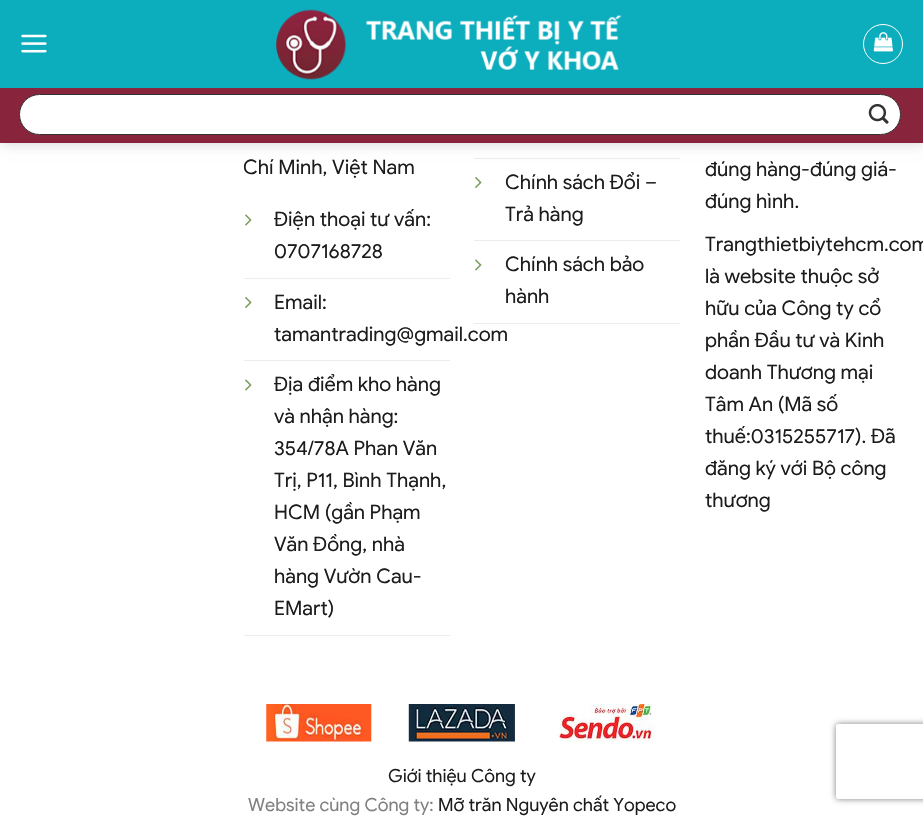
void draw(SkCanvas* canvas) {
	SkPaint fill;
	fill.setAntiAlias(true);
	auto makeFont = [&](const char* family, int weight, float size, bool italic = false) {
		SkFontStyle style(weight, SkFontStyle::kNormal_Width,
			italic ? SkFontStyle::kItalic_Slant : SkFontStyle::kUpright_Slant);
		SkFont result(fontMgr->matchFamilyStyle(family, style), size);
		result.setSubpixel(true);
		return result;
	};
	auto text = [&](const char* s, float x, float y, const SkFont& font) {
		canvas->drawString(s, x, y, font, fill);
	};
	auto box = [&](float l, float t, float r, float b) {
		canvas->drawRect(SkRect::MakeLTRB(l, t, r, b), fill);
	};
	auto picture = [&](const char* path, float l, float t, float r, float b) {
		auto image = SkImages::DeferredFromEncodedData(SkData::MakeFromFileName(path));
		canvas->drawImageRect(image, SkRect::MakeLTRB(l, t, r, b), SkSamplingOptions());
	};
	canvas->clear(0xFFFFFFFF);
	fill.setColor(0xFFECECEC);
	box(474, 158, 680, 159);
	fill.setColor(0x26000000);
	fill.setMaskFilter(SkMaskFilter::MakeBlur(kNormal_SkBlurStyle, 6));
	canvas->drawRect(SkRect::MakeLTRB(1, 1, 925, 144), fill);
	fill.setMaskFilter(nullptr);
	fill.setColor(0xFF0CADBD);
	box(0, 0, 923, 88);
	picture("image0.png", 21, 34, 47, 53);
	picture("image1.png", 276, 9, 622, 80);
	fill.setStyle(SkPaint::kStroke_Style);
	fill.setStrokeWidth(1);
	fill.setColor(0xFFFFFFFF);
	canvas->drawCircle(883, 44, 19.5f, fill);
	picture("image2.png", 873, 32, 893, 52);
	fill.setStyle(SkPaint::kFill_Style);
	fill.setColor(0xFF88243C);
	box(0, 88, 923, 143);
	fill.setColor(0xFFFFFFFF);
	canvas->drawRoundRect(SkRect::MakeLTRB(19.5f, 94.5f, 900.5f, 134.5f), 20, 20, fill);
	fill.setStyle(SkPaint::kStroke_Style);
	fill.setColor(0xFF333333);
	canvas->drawRoundRect(SkRect::MakeLTRB(19.5f, 94.5f, 900.5f, 134.5f), 20, 20, fill);
	picture("image3.png", 868, 103, 889, 124);
	fill.setStyle(SkPaint::kFill_Style);
	fill.setColor(0xFFECECEC);
	box(244, 278, 450, 279);
	picture("image4.png", 245, 214, 252, 226);
	box(244, 360, 450, 361);
	picture("image5.png", 245, 297, 252, 308);
	box(244, 635, 450, 636);
	picture("image4.png", 245, 379, 252, 391);
	box(474, 240, 680, 241);
	picture("image5.png", 475, 177, 482, 188);
	box(474, 323, 680, 324);
	picture("image4.png", 475, 259, 482, 271);
	picture("image6.png", 266, 704, 372, 742);
	picture("image7.png", 408, 704, 515, 742);
	picture("image8.png", 556, 704, 656, 742);
	canvas->save();
	canvas->clipPath(SkPathBuilder(SkPathFillType::kEvenOdd).moveTo(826, 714).lineTo(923, 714).lineTo(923, 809).lineTo(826, 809).close().moveTo(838.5f, 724).lineTo(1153.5f, 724).cubicTo(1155, 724, 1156, 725, 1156, 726.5f).lineTo(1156, 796.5f).cubicTo(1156, 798, 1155, 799, 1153.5f, 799).lineTo(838.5f, 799).cubicTo(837, 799, 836, 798, 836, 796.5f).lineTo(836, 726.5f).cubicTo(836, 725, 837, 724, 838.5f, 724).close().detach(), true);
	fill.setColor(0xFF808080);
	fill.setMaskFilter(SkMaskFilter::MakeBlur(kNormal_SkBlurStyle, 3));
	canvas->drawRoundRect(SkRect::MakeLTRB(836, 724, 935, 799), 2.5f, 2.5f, fill);
	fill.setMaskFilter(nullptr);
	canvas->restore();
	auto font1 = makeFont("Google Sans", 400, 20);
	fill.setColor(0xFF1C1C1C);
	text("Chí Minh, Việt Nam", 243, 174, font1);
	text("Điện thoại tư vấn:", 274, 226, font1);
	text("0707168728", 274, 258, font1);
	text("Email:", 274, 309, font1);
	text("tamantrading@gmail.com", 274, 341, font1);
	text("Địa điểm kho hàng", 274, 391, font1);
	text("và nhận hàng:", 274, 423, font1);
	text("354/78A Phan Văn", 274, 455, font1);
	text("Trị, P11, Bình Thạnh,", 274, 487, font1);
	text("HCM (gần Phạm", 274, 519, font1);
	text("Văn Đồng, nhà", 274, 551, font1);
	text("hàng Vườn Cau-", 274, 583, font1);
	text("EMart)", 274, 615, font1);
	text("Chính sách Đổi –", 505, 189, font1);
	text("Trả hàng", 505, 221, font1);
	text("Chính sách bảo", 505, 271, font1);
	text("hành", 505, 303, font1);
	text("đúng hàng-đúng giá-", 705, 176, font1);
	text("đúng hình.", 705, 208, font1);
	text("Trangthietbiytehcm.com", 705, 251, font1);
	text("là website thuộc sở", 705, 283, font1);
	text("hữu của Công ty cổ", 705, 315, font1);
	text("phần Đầu tư và Kinh", 705, 347, font1);
	text("doanh Thương mại", 705, 379, font1);
	text("Tâm An (Mã số", 705, 411, font1);
	text("thuế:0315255717). Đã", 705, 443, font1);
	text("đăng ký với Bộ công", 705, 475, font1);
	text("thương", 705, 507, font1);
	auto font2 = makeFont("Google Sans", 400, 18);
	text("Giới thiệu Công ty", 388, 782, font2);
	fill.setColor(0xFF808080);
	text("Website cùng Công ty:", 248, 811, font2);
	fill.setColor(0xFF1C1C1C);
	text("Mỡ trăn Nguyên chất Yopeco", 438, 811, font2);
}
